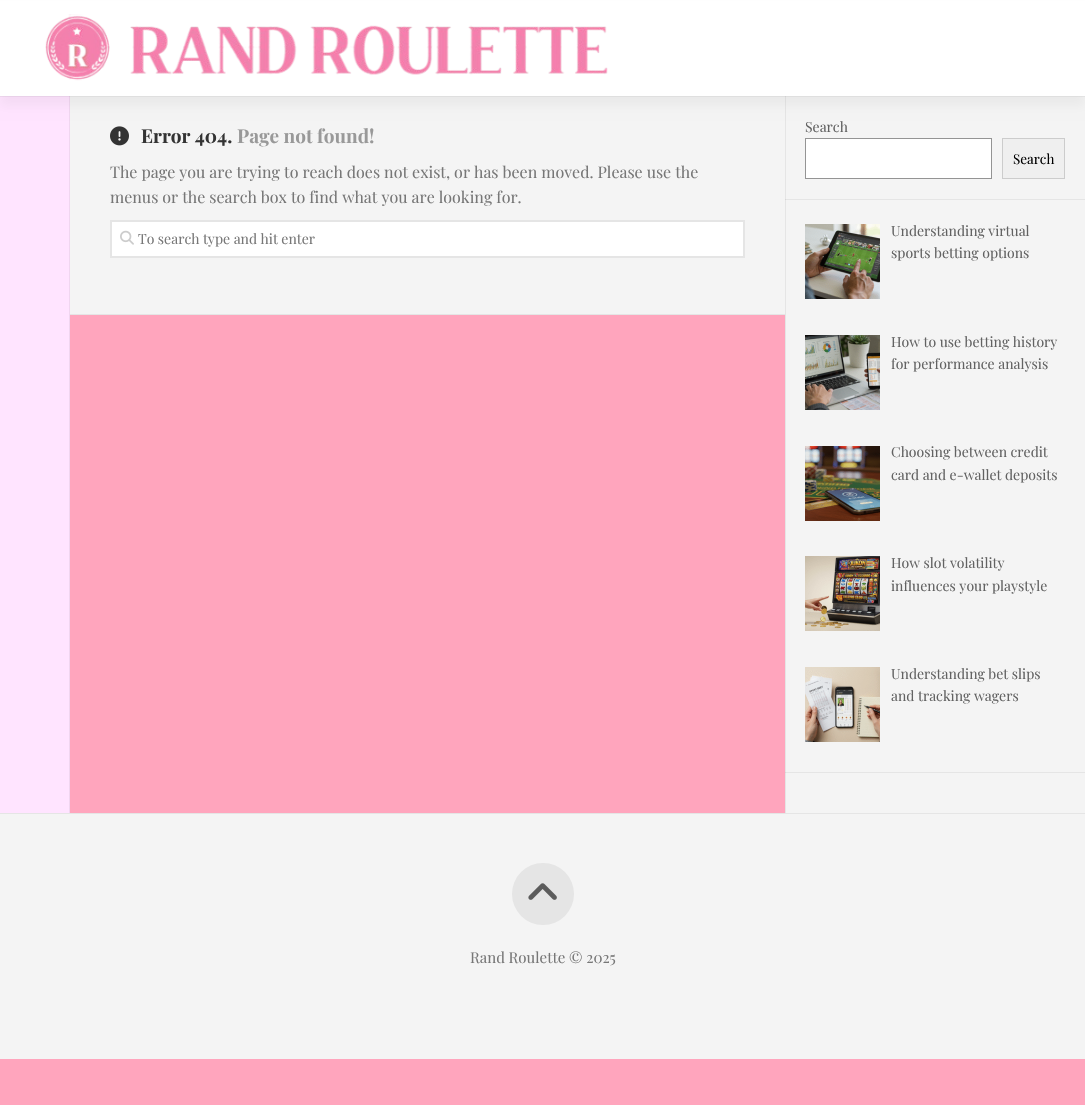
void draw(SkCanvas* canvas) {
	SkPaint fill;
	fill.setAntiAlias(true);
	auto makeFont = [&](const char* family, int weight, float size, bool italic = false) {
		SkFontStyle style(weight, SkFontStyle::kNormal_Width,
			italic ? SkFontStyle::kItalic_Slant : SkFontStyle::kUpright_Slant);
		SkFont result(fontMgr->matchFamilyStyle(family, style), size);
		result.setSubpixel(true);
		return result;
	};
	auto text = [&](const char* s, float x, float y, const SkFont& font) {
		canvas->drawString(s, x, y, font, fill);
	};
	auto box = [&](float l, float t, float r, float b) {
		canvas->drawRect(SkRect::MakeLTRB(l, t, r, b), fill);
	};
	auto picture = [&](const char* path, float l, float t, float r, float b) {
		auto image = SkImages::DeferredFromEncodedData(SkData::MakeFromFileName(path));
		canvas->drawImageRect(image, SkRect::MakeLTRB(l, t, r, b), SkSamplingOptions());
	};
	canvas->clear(0xFFFFA5BD);
	fill.setColor(0xFFFFFFFF);
	box(0, 0, 1085, 1);
	fill.setColor(0xFFFFE4FF);
	box(0, 97, 69, 813);
	fill.setColor(0xFFF2D9F2);
	box(0, 96, 70, 97);
	fill.setColor(0xFFF0D6F0);
	box(69, 96, 70, 813);
	fill.setColor(0xFFE4CBE4);
	box(69, 96, 70, 97);
	fill.setColor(0xFFF4F4F4);
	box(70, 97, 785, 314);
	box(786, 97, 1085, 813);
	fill.setColor(0xFFE8E8E8);
	box(70, 96, 1085, 97);
	fill.setColor(0xFFE5E5E5);
	box(785, 772, 1085, 773);
	box(785, 199, 1085, 200);
	box(785, 96, 786, 813);
	fill.setColor(0xFFDADADA);
	box(785, 96, 786, 97);
	fill.setColor(0x0A000000);
	fill.setMaskFilter(SkMaskFilter::MakeBlur(kNormal_SkBlurStyle, 5));
	canvas->drawRect(SkRect::MakeLTRB(0, 11, 1085, 106), fill);
	fill.setMaskFilter(nullptr);
	fill.setColor(0xFFFFFFFF);
	box(0, 1, 1085, 96);
	picture("image0.png", 45, 14, 608, 81);
	fill.setColor(0xFFE5E5E5);
	box(70, 314, 785, 315);
	picture("image1.png", 110, 126, 129, 146);
	fill.setColor(0xFFFFFFFF);
	canvas->drawRect(SkRect::MakeLTRB(111, 221, 744, 257), fill);
	fill.setStyle(SkPaint::kStroke_Style);
	fill.setStrokeWidth(2);
	fill.setColor(0xFFE5E5E5);
	canvas->drawRect(SkRect::MakeLTRB(111, 221, 744, 257), fill);
	picture("image2.png", 120, 230, 134, 245);
	fill.setStyle(SkPaint::kFill_Style);
	fill.setColor(0xFFD7D7D7);
	box(785, 772, 786, 773);
	box(785, 199, 786, 200);
	fill.setColor(0xFFFFFFFF);
	canvas->drawRect(SkRect::MakeLTRB(805.5f, 138.5f, 991.5f, 178.5f), fill);
	fill.setStyle(SkPaint::kStroke_Style);
	fill.setStrokeWidth(1);
	fill.setColor(0xFF949494);
	canvas->drawRect(SkRect::MakeLTRB(805.5f, 138.5f, 991.5f, 178.5f), fill);
	fill.setStyle(SkPaint::kFill_Style);
	fill.setColor(0xFFEFEFEF);
	canvas->drawRect(SkRect::MakeLTRB(1002.5f, 138.5f, 1064.5f, 178.5f), fill);
	fill.setStyle(SkPaint::kStroke_Style);
	fill.setColor(0xFFCCCCCC);
	canvas->drawRect(SkRect::MakeLTRB(1002.5f, 138.5f, 1064.5f, 178.5f), fill);
	picture("image3.png", 805, 224, 880, 299);
	picture("image4.png", 805, 335, 880, 410);
	picture("image5.png", 805, 446, 880, 521);
	picture("image6.png", 805, 556, 880, 631);
	picture("image7.png", 805, 667, 880, 742);
	fill.setStyle(SkPaint::kFill_Style);
	fill.setColor(0xFFF4F4F4);
	box(0, 814, 1085, 1059);
	fill.setColor(0xFFE5E5E5);
	box(0, 813, 1085, 814);
	canvas->drawCircle(543, 894, 31, fill);
	picture("image8.png", 528, 883, 557, 900);
	auto font1 = makeFont("Playfair Display", 700, 19);
	fill.setColor(0xFF333333);
	text("Error 404.", 141, 143, font1);
	fill.setColor(0xFF999999);
	text("Page not found!", 237, 143, font1);
	auto font2 = makeFont("Playfair Display", 400, 16);
	fill.setColor(0xFF777777);
	text("The page you are trying to reach does not exist, or has been moved. Please use the", 110, 178, font2);
	text("menus or the search box to find what you are looking for.", 110, 203, font2);
	auto font3 = makeFont("Playfair Display", 400, 14);
	text("To search type and hit enter", 138, 244, font3);
	fill.setColor(0xFF626262);
	text("Search", 805, 132, font3);
	auto font4 = makeFont("Playfair Display", 400, 13.5f);
	fill.setColor(0xFF000000);
	text("Search", 1013, 164, font4);
	fill.setColor(0xFF626262);
	text("Understanding virtual", 891, 236, font3);
	text("sports betting options", 891, 258, font3);
	text("How to use betting history", 891, 347, font3);
	text("for performance analysis", 891, 369, font3);
	text("Choosing between credit", 891, 457, font3);
	text("card and e-wallet deposits", 891, 480, font3);
	text("How slot volatility", 891, 568, font3);
	text("influences your playstyle", 891, 591, font3);
	text("Understanding bet slips", 891, 679, font3);
	text("and tracking wagers", 891, 701, font3);
	auto font5 = makeFont("Playfair Display", 400, 15);
	fill.setColor(0xFF777777);
	text("Rand Roulette © 2025", 470, 963, font5);
}
